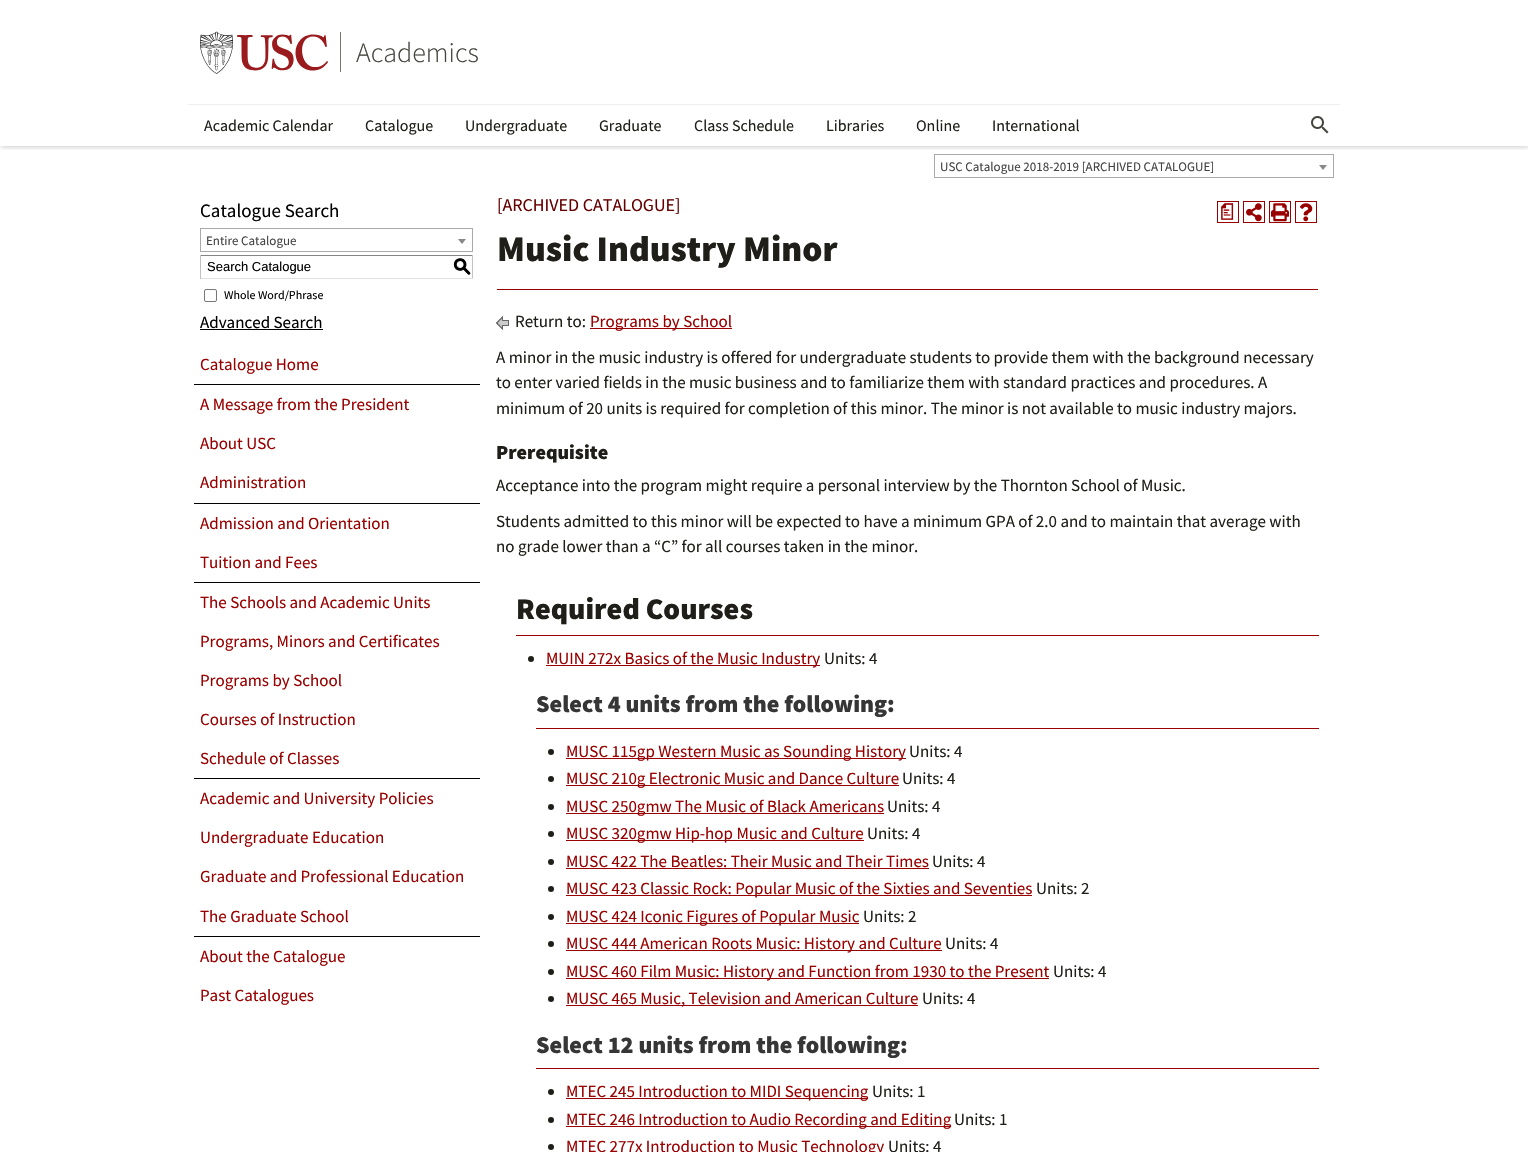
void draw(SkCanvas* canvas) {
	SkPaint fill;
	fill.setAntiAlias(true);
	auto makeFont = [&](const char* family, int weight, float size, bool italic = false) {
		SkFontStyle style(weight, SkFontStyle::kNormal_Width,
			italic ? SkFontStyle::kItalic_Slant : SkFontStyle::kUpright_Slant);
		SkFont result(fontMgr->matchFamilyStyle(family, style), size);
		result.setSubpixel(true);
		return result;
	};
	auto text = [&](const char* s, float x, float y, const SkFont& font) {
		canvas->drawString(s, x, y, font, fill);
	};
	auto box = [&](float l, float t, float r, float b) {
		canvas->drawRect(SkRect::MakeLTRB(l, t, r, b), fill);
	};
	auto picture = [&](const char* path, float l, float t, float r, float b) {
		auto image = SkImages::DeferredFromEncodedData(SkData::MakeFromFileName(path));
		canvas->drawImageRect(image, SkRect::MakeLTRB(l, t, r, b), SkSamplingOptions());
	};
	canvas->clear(0xFFFFFFFF);
	canvas->save();
	canvas->clipRect(SkRect::MakeLTRB(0, 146, 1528, 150));
	fill.setColor(0x33000000);
	fill.setMaskFilter(SkMaskFilter::MakeBlur(kNormal_SkBlurStyle, 2.5f));
	canvas->drawRect(SkRect::MakeLTRB(1, 1, 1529, 147), fill);
	fill.setMaskFilter(nullptr);
	canvas->restore();
	picture("image0.png", 200, 31, 328, 74);
	fill.setColor(0xFF77766F);
	box(340, 32, 341, 72);
	fill.setColor(0xFFEEEEEE);
	box(188, 104, 1340, 105);
	picture("image1.png", 1311, 116, 1329, 134);
	fill.setStyle(SkPaint::kStroke_Style);
	fill.setStrokeWidth(1);
	fill.setColor(0xFFAAAAAA);
	canvas->drawRect(SkRect::MakeLTRB(934.5f, 154.5f, 1333.5f, 177.5f), fill);
	fill.setStyle(SkPaint::kFill_Style);
	fill.setColor(0xFF888888);
	canvas->drawPath(SkPathBuilder().moveTo(1319, 165).lineTo(1327, 165).lineTo(1323, 170).close().detach(), fill);
	fill.setStyle(SkPaint::kStroke_Style);
	fill.setColor(0xFFAAAAAA);
	canvas->drawRect(SkRect::MakeLTRB(200.5f, 228.5f, 472.5f, 251.5f), fill);
	fill.setStyle(SkPaint::kFill_Style);
	fill.setColor(0xFF888888);
	canvas->drawPath(SkPathBuilder().moveTo(458, 239).lineTo(466, 239).lineTo(462, 244).close().detach(), fill);
	fill.setColor(0xFF848484);
	box(200, 255, 473, 256);
	fill.setColor(0xFFC1C1C1);
	box(472, 255, 473, 279);
	fill.setColor(0xFFE1E1E1);
	box(200, 278, 473, 279);
	fill.setColor(0xFFC1C1C1);
	box(200, 255, 201, 279);
	fill.setStyle(SkPaint::kStroke_Style);
	fill.setColor(0xFF767676);
	canvas->drawRoundRect(SkRect::MakeLTRB(204.5f, 289.5f, 216.5f, 301.5f), 1.5f, 1.5f, fill);
	fill.setStyle(SkPaint::kFill_Style);
	fill.setColor(0xFF000000);
	box(200, 329, 323, 330);
	box(194, 384, 480, 385);
	box(194, 503, 480, 504);
	box(194, 582, 480, 583);
	box(194, 778, 480, 779);
	box(194, 936, 480, 937);
	fill.setStyle(SkPaint::kStroke_Style);
	fill.setColor(0xFF990000);
	canvas->drawRect(SkRect::MakeLTRB(1217.5f, 201.5f, 1238.5f, 222.5f), fill);
	canvas->drawRect(SkRect::MakeLTRB(1243.5f, 201.5f, 1264.5f, 222.5f), fill);
	picture("image2.png", 1246, 203, 1262, 222);
	canvas->drawRect(SkRect::MakeLTRB(1269.5f, 201.5f, 1290.5f, 222.5f), fill);
	picture("image3.png", 1271, 203, 1289, 222);
	canvas->drawRect(SkRect::MakeLTRB(1295.5f, 201.5f, 1316.5f, 222.5f), fill);
	picture("image4.png", 1300, 203, 1313, 222);
	fill.setStyle(SkPaint::kFill_Style);
	box(497, 289, 1318, 290);
	picture("image5.png", 496, 316, 509, 330);
	box(590, 328, 732, 329);
	box(516, 635, 1319, 636);
	fill.setColor(0xFF1F1E18);
	canvas->drawCircle(531, 659, 3, fill);
	fill.setColor(0xFF990000);
	box(546, 665, 820, 666);
	box(536, 728, 1319, 729);
	fill.setColor(0xFF1F1E18);
	canvas->drawCircle(551, 752, 3, fill);
	fill.setColor(0xFF990000);
	box(566, 758, 906, 759);
	fill.setColor(0xFF1F1E18);
	canvas->drawCircle(551, 779, 3, fill);
	fill.setColor(0xFF990000);
	box(566, 785, 899, 786);
	fill.setColor(0xFF1F1E18);
	canvas->drawCircle(551, 807, 3, fill);
	fill.setColor(0xFF990000);
	box(566, 813, 884, 814);
	fill.setColor(0xFF1F1E18);
	canvas->drawCircle(551, 834, 3, fill);
	fill.setColor(0xFF990000);
	box(566, 840, 864, 841);
	fill.setColor(0xFF1F1E18);
	canvas->drawCircle(551, 862, 3, fill);
	fill.setColor(0xFF990000);
	box(566, 868, 929, 869);
	fill.setColor(0xFF1F1E18);
	canvas->drawCircle(551, 889, 3, fill);
	fill.setColor(0xFF990000);
	box(566, 895, 1032, 896);
	fill.setColor(0xFF1F1E18);
	canvas->drawCircle(551, 917, 3, fill);
	fill.setColor(0xFF990000);
	box(566, 923, 859, 924);
	fill.setColor(0xFF1F1E18);
	canvas->drawCircle(551, 944, 3, fill);
	fill.setColor(0xFF990000);
	box(566, 950, 942, 951);
	fill.setColor(0xFF1F1E18);
	canvas->drawCircle(551, 972, 3, fill);
	fill.setColor(0xFF990000);
	box(566, 978, 1049, 979);
	fill.setColor(0xFF1F1E18);
	canvas->drawCircle(551, 999, 3, fill);
	fill.setColor(0xFF990000);
	box(566, 1005, 918, 1006);
	box(536, 1068, 1319, 1069);
	fill.setColor(0xFF1F1E18);
	canvas->drawCircle(551, 1092, 3, fill);
	fill.setColor(0xFF990000);
	box(566, 1098, 868, 1099);
	fill.setColor(0xFF1F1E18);
	canvas->drawCircle(551, 1120, 3, fill);
	fill.setColor(0xFF990000);
	box(566, 1126, 951, 1127);
	fill.setColor(0xFF1F1E18);
	canvas->drawCircle(551, 1147, 3, fill);
	auto font1 = makeFont("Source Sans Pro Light", 300, 28);
	fill.setColor(0xFF44433C);
	text("Academics", 356, 62, font1);
	auto font2 = makeFont("Source Sans Pro", 400, 16);
	fill.setColor(0xFF1F1E18);
	text("Academic Calendar", 204, 131, font2);
	text("Catalogue", 365, 131, font2);
	text("Undergraduate", 465, 131, font2);
	text("Graduate", 599, 131, font2);
	text("Class Schedule", 694, 131, font2);
	text("Libraries", 826, 131, font2);
	text("Online", 916, 131, font2);
	text("International", 992, 131, font2);
	auto font3 = makeFont("Source Sans Pro", 400, 13);
	fill.setColor(0xFF444444);
	text("USC Catalogue 2018-2019 [ARCHIVED CATALOGUE]", 940, 171, font3);
	auto font4 = makeFont("Source Sans Pro", 400, 19);
	fill.setColor(0xFF000000);
	text("Catalogue Search", 200, 217, font4);
	fill.setColor(0xFF444444);
	text("Entire Catalogue", 206, 245, font3);
	auto font5 = makeFont("Liberation Sans", 400, 13);
	fill.setColor(0xFF000000);
	text("Search Catalogue", 207, 271, font5);
	auto font6 = makeFont("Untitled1", 500, 18);
	text("S", 453, 272, font6);
	auto font7 = makeFont("Source Sans Pro", 400, 12);
	text("Whole Word/Phrase", 224, 299, font7);
	auto font8 = makeFont("Source Sans Pro", 400, 17);
	text("Advanced Search", 200, 328, font8);
	fill.setColor(0xFF990000);
	text("Catalogue Home", 200, 370, font8);
	text("A Message from the President", 200, 410, font8);
	text("About USC", 200, 449, font8);
	text("Administration", 200, 488, font8);
	text("Admission and Orientation", 200, 529, font8);
	text("Tuition and Fees", 200, 568, font8);
	text("The Schools and Academic Units", 200, 608, font8);
	text("Programs, Minors and Certificates", 200, 647, font8);
	text("Programs by School", 200, 686, font8);
	text("Courses of Instruction", 200, 725, font8);
	text("Schedule of Classes", 200, 764, font8);
	text("Academic and University Policies", 200, 804, font8);
	text("Undergraduate Education", 200, 843, font8);
	text("Graduate and Professional Education", 200, 882, font8);
	text("The Graduate School", 200, 922, font8);
	text("About the Catalogue", 200, 962, font8);
	text("Past Catalogues", 200, 1001, font8);
	auto font9 = makeFont("Source Sans Pro", 400, 18);
	fill.setColor(0xFF660000);
	text("[ARCHIVED CATALOGUE]", 497, 211, font9);
	fill.setColor(0xFF990000);
	text("a", 1218, 217, font6);
	auto font10 = makeFont("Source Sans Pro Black", 900, 36);
	fill.setColor(0xFF1F1E18);
	text("Music Industry Minor", 497, 261, font10);
	text("Return to:", 515, 327, font8);
	fill.setColor(0xFF990000);
	text("Programs by School", 590, 327, font8);
	fill.setColor(0xFF1F1E18);
	text("A minor in the music industry is offered for undergraduate students to provide them with the background necessary", 496, 363, font8);
	text("to enter varied fields in the music business and to familiarize them with standard practices and procedures. A", 496, 388, font8);
	text("minimum of 20 units is required for completion of this minor. The minor is not available to music industry majors.", 496, 414, font8);
	auto font11 = makeFont("Source Sans Pro Black", 900, 20);
	text("Prerequisite", 496, 459, font11);
	text("Acceptance into the program might require a personal interview by the Thornton School of Music.", 496, 491, font8);
	text("Students admitted to this minor will be expected to have a minimum GPA of 2.0 and to maintain that average with", 496, 527, font8);
	text("no grade lower than a “C” for all courses taken in the minor.", 496, 552, font8);
	auto font12 = makeFont("Source Sans Pro Black", 900, 30);
	text("Required Courses", 516, 619, font12);
	fill.setColor(0xFF990000);
	text("MUIN 272x Basics of the Music Industry", 546, 664, font8);
	fill.setColor(0xFF1F1E18);
	text("Units: 4", 824, 664, font8);
	auto font13 = makeFont("Source Sans Pro Black", 900, 24);
	fill.setColor(0xFF363636);
	text("Select 4 units from the following:", 536, 712, font13);
	fill.setColor(0xFF990000);
	text("MUSC 115gp Western Music as Sounding History", 566, 757, font8);
	fill.setColor(0xFF1F1E18);
	text("Units: 4", 909, 757, font8);
	fill.setColor(0xFF990000);
	text("MUSC 210g Electronic Music and Dance Culture", 566, 784, font8);
	fill.setColor(0xFF1F1E18);
	text("Units: 4", 902, 784, font8);
	fill.setColor(0xFF990000);
	text("MUSC 250gmw The Music of Black Americans", 566, 812, font8);
	fill.setColor(0xFF1F1E18);
	text("Units: 4", 887, 812, font8);
	fill.setColor(0xFF990000);
	text("MUSC 320gmw Hip-hop Music and Culture", 566, 839, font8);
	fill.setColor(0xFF1F1E18);
	text("Units: 4", 867, 839, font8);
	fill.setColor(0xFF990000);
	text("MUSC 422 The Beatles: Their Music and Their Times", 566, 867, font8);
	fill.setColor(0xFF1F1E18);
	text("Units: 4", 932, 867, font8);
	fill.setColor(0xFF990000);
	text("MUSC 423 Classic Rock: Popular Music of the Sixties and Seventies", 566, 894, font8);
	fill.setColor(0xFF1F1E18);
	text("Units: 2", 1036, 894, font8);
	fill.setColor(0xFF990000);
	text("MUSC 424 Iconic Figures of Popular Music", 566, 922, font8);
	fill.setColor(0xFF1F1E18);
	text("Units: 2", 863, 922, font8);
	fill.setColor(0xFF990000);
	text("MUSC 444 American Roots Music: History and Culture", 566, 949, font8);
	fill.setColor(0xFF1F1E18);
	text("Units: 4", 945, 949, font8);
	fill.setColor(0xFF990000);
	text("MUSC 460 Film Music: History and Function from 1930 to the Present", 566, 977, font8);
	fill.setColor(0xFF1F1E18);
	text("Units: 4", 1053, 977, font8);
	fill.setColor(0xFF990000);
	text("MUSC 465 Music, Television and American Culture", 566, 1004, font8);
	fill.setColor(0xFF1F1E18);
	text("Units: 4", 922, 1004, font8);
	fill.setColor(0xFF363636);
	text("Select 12 units from the following:", 536, 1053, font13);
	fill.setColor(0xFF990000);
	text("MTEC 245 Introduction to MIDI Sequencing", 566, 1097, font8);
	fill.setColor(0xFF1F1E18);
	text("Units: 1", 872, 1097, font8);
	fill.setColor(0xFF990000);
	text("MTEC 246 Introduction to Audio Recording and Editing", 566, 1125, font8);
	fill.setColor(0xFF1F1E18);
	text("Units: 1", 954, 1125, font8);
	fill.setColor(0xFF990000);
	text("MTEC 277x Introduction to Music Technology", 566, 1152, font8);
	fill.setColor(0xFF1F1E18);
	text("Units: 4", 888, 1152, font8);
}
